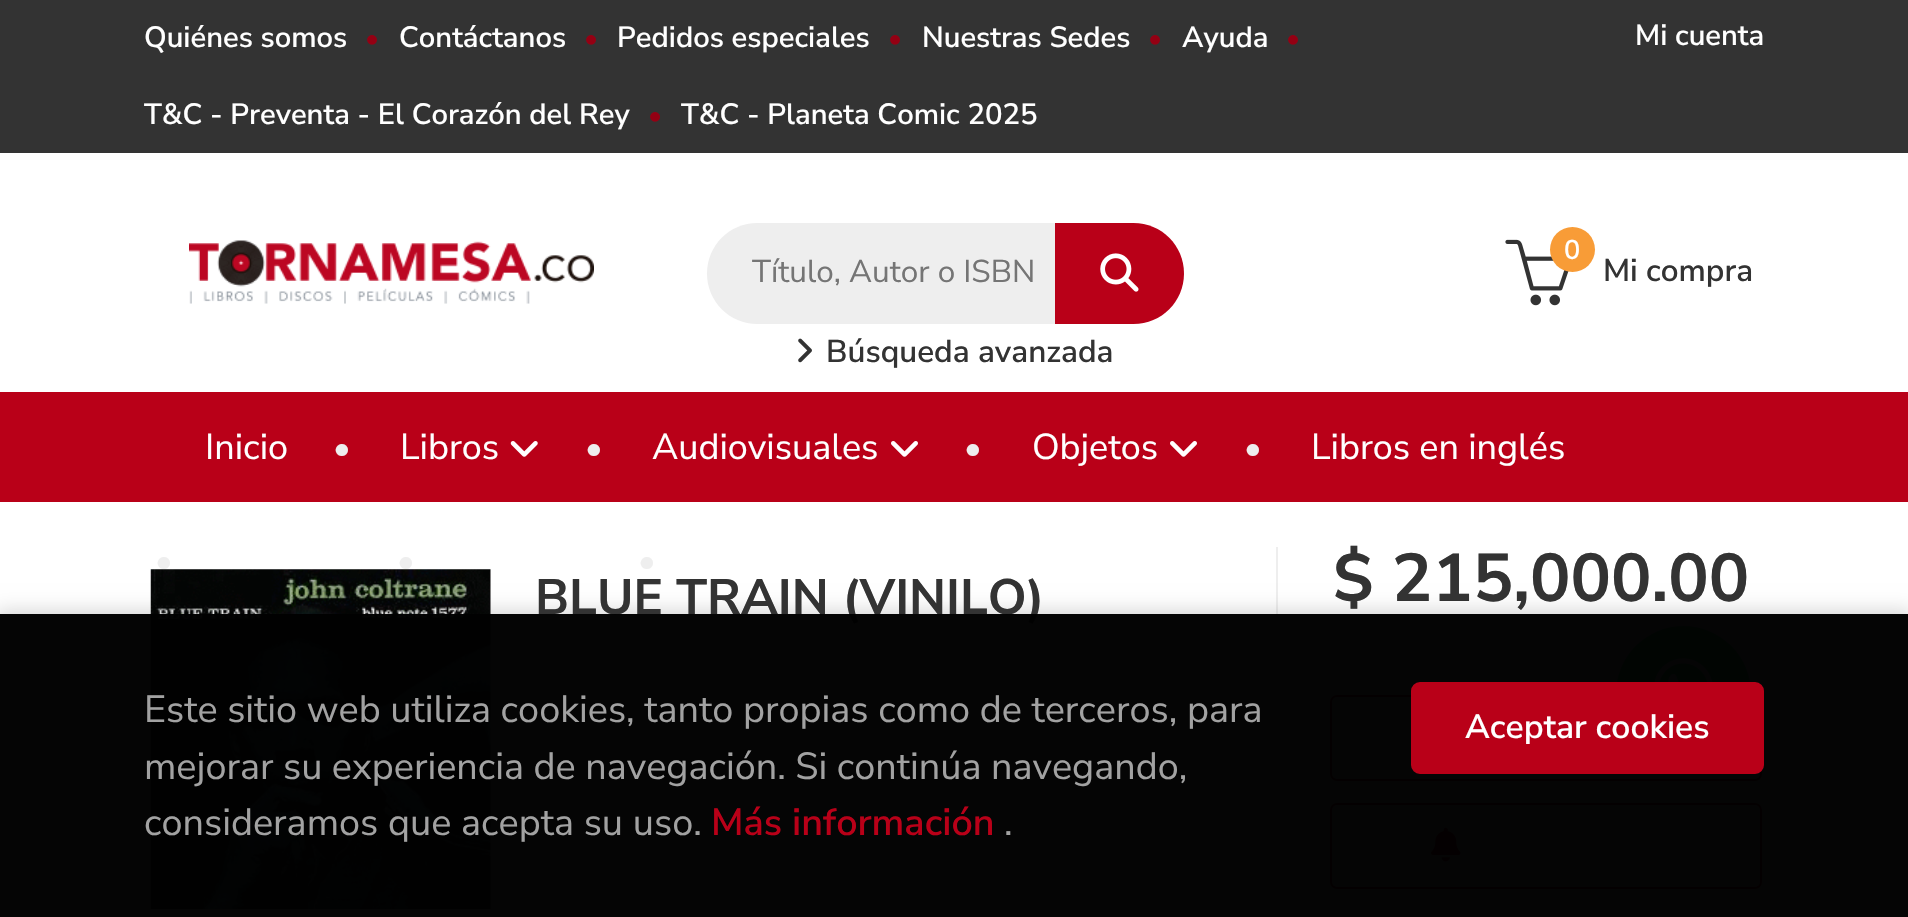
void draw(SkCanvas* canvas) {
	SkPaint fill;
	fill.setAntiAlias(true);
	auto makeFont = [&](const char* family, int weight, float size, bool italic = false) {
		SkFontStyle style(weight, SkFontStyle::kNormal_Width,
			italic ? SkFontStyle::kItalic_Slant : SkFontStyle::kUpright_Slant);
		SkFont result(fontMgr->matchFamilyStyle(family, style), size);
		result.setSubpixel(true);
		return result;
	};
	auto text = [&](const char* s, float x, float y, const SkFont& font) {
		canvas->drawString(s, x, y, font, fill);
	};
	auto spacedText = [&](const char* s, float x, float y, const SkFont& font, const SkPaint& ink, float letter, float word) {
		std::vector<SkGlyphID> glyphs(font.countText(s, strlen(s), SkTextEncoding::kUTF8));
		std::vector<float> xs(glyphs.size());
		font.textToGlyphs(s, strlen(s), SkTextEncoding::kUTF8, glyphs);
		font.getXPos(glyphs, xs, x);
		float extra = 0;
		for (size_t i = 0; i < glyphs.size(); i++) {
			xs[i] += extra;
			extra += letter + word * (glyphs[i] == font.unicharToGlyph(' '));
		}
		canvas->drawTextBlob(SkTextBlob::MakeFromPosHGlyphs(glyphs, xs, y, font), 0, 0, ink);
	};
	auto box = [&](float l, float t, float r, float b) {
		canvas->drawRect(SkRect::MakeLTRB(l, t, r, b), fill);
	};
	auto picture = [&](const char* path, float l, float t, float r, float b) {
		auto image = SkImages::DeferredFromEncodedData(SkData::MakeFromFileName(path));
		canvas->drawImageRect(image, SkRect::MakeLTRB(l, t, r, b), SkSamplingOptions());
	};
	canvas->clear(0xFFFFFFFF);
	fill.setColor(0xFF333333);
	box(0, 0, 1908, 153);
	picture("image0.png", 189, 240, 594, 304);
	fill.setColor(0xFFEEEEEE);
	canvas->drawPath(SkPathBuilder().moveTo(757.5f, 223).lineTo(1055, 223).lineTo(1055, 324).lineTo(757.5f, 324).cubicTo(729.5f, 324, 707, 301.5f, 707, 273.5f).cubicTo(707, 245.5f, 729.5f, 223, 757.5f, 223).close().detach(), fill);
	fill.setColor(0xFFB90018);
	canvas->drawPath(SkPathBuilder().moveTo(1055, 223).lineTo(1133.5f, 223).cubicTo(1161.5f, 223, 1184, 245.5f, 1184, 273.5f).cubicTo(1184, 301.5f, 1161.5f, 324, 1133.5f, 324).lineTo(1055, 324).close().detach(), fill);
	picture("image1.png", 1100, 253, 1139, 292);
	picture("image2.png", 798, 338, 812, 363);
	picture("image3.png", 1505, 239, 1569, 306);
	fill.setColor(0xFFF89C37);
	canvas->drawCircle(1572.5f, 249.5f, 22.5f, fill);
	fill.setColor(0xFFB90018);
	box(0, 392, 1908, 502);
	picture("image4.png", 510, 441, 538, 457);
	picture("image5.png", 891, 441, 918, 457);
	picture("image5.png", 1170, 441, 1197, 457);
	fill.setColor(0xFFEEEEEE);
	box(1276, 547, 1278, 917);
	picture("image6.png", 150, 569, 491, 909);
	fill.setStyle(SkPaint::kStroke_Style);
	fill.setStrokeWidth(2);
	fill.setColor(0xFFE9E9E9);
	canvas->drawRoundRect(SkRect::MakeLTRB(537, 910, 1158, 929), 10, 10, fill);
	fill.setStyle(SkPaint::kFill_Style);
	fill.setColor(0xFFF7F7F7);
	box(538, 911, 1157, 917);
	fill.setStyle(SkPaint::kStroke_Style);
	fill.setColor(0xFFE3E3E3);
	canvas->drawRoundRect(SkRect::MakeLTRB(1329, 694, 1763, 782), 6, 6, fill);
	fill.setColor(0xFFB90018);
	canvas->drawRoundRect(SkRect::MakeLTRB(1331, 696, 1761, 780), 6, 6, fill);
	fill.setColor(0xFFE3E3E3);
	canvas->drawRoundRect(SkRect::MakeLTRB(1329, 802, 1763, 890), 6, 6, fill);
	fill.setColor(0xFFB90018);
	canvas->drawRoundRect(SkRect::MakeLTRB(1331, 804, 1761, 888), 6, 6, fill);
	picture("image7.png", 1431, 827, 1461, 862);
	fill.setStyle(SkPaint::kFill_Style);
	fill.setColor(0xFF25D366);
	canvas->drawCircle(1683.5f, 693.5f, 67.5f, fill);
	picture("image8.png", 1654, 658, 1713, 682);
	canvas->save();
	canvas->clipPath(SkPathBuilder(SkPathFillType::kEvenOdd).moveTo(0, 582).lineTo(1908, 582).lineTo(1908, 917).lineTo(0, 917).close().moveTo(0, 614).lineTo(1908, 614).lineTo(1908, 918).lineTo(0, 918).close().detach(), true);
	fill.setColor(0x26000000);
	fill.setMaskFilter(SkMaskFilter::MakeBlur(kNormal_SkBlurStyle, 9));
	canvas->drawRect(SkRect::MakeLTRB(-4, 610, 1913, 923), fill);
	fill.setMaskFilter(nullptr);
	canvas->restore();
	auto font1 = makeFont("Nunito Sans", 600, 29.25f);
	fill.setColor(0xFFFFFFFF);
	text("Quiénes somos", 144, 47, font1);
	auto font2 = makeFont("Nunito Sans", 600, 27);
	fill.setColor(0xFF940013);
	text("•", 365, 47, font2);
	fill.setColor(0xFFFFFFFF);
	text("Contáctanos", 399, 47, font1);
	fill.setColor(0xFF940013);
	text("•", 584, 47, font2);
	fill.setColor(0xFFFFFFFF);
	text("Pedidos especiales", 617, 47, font1);
	fill.setColor(0xFF940013);
	text("•", 888, 47, font2);
	fill.setColor(0xFFFFFFFF);
	text("Nuestras Sedes", 922, 47, font1);
	fill.setColor(0xFF940013);
	text("•", 1148, 47, font2);
	fill.setColor(0xFFFFFFFF);
	text("Ayuda", 1182, 47, font1);
	fill.setColor(0xFF940013);
	text("•", 1286, 47, font2);
	fill.setColor(0xFFFFFFFF);
	text("T&C - Preventa - El Corazón del Rey", 144, 124, font1);
	fill.setColor(0xFF940013);
	text("•", 648, 124, font2);
	fill.setColor(0xFFFFFFFF);
	text("T&C - Planeta Comic 2025", 681, 124, font1);
	text("Mi cuenta", 1635, 45, font1);
	canvas->save();
	canvas->clipRect(SkRect::MakeLTRB(752, 252, 1055, 295));
	auto font3 = makeFont("Nunito Sans", 400, 31.5f);
	fill.setColor(0xFF757575);
	text("Título, Autor o ISBN", 752, 282, font3);
	canvas->restore();
	auto font4 = makeFont("Nunito Sans", 600, 31.5f);
	fill.setColor(0xFF333333);
	text("Búsqueda avanzada", 826, 362, font4);
	fill.setColor(0xFFFFFFFF);
	text("0", 1564, 259, font2);
	fill.setColor(0xFF333333);
	text("Mi compra", 1603, 281, font4);
	auto font5 = makeFont("Nunito Sans", 400, 36);
	fill.setColor(0xFFFFFFFF);
	text("Inicio", 205, 459, font5);
	auto font6 = makeFont("Nunito Sans", 400, 33.75f);
	fill.setColor(0xFFEEEEEE);
	text("•", 333, 459, font6);
	fill.setColor(0xFFFFFFFF);
	text("Libros", 400, 459, font5);
	fill.setColor(0xFFEEEEEE);
	text("•", 585, 459, font6);
	fill.setColor(0xFFFFFFFF);
	text("Audiovisuales", 652, 459, font5);
	fill.setColor(0xFFEEEEEE);
	text("•", 964, 459, font6);
	fill.setColor(0xFFFFFFFF);
	text("Objetos", 1032, 459, font5);
	fill.setColor(0xFFEEEEEE);
	text("•", 1244, 459, font6);
	fill.setColor(0xFFFFFFFF);
	text("Libros en inglés", 1311, 459, font5);
	fill.setColor(0xFFEEEEEE);
	text("•", 155, 572, font6);
	text("•", 397, 572, font6);
	text("•", 638, 572, font6);
	auto font7 = makeFont("Nunito Sans", 700, 49.5f);
	fill.setColor(0xFF333333);
	text("BLUE TRAIN (VINILO)", 535, 614, font7);
	auto font8 = makeFont("Nunito Sans", 700, 67.5f);
	text("$ 215,000.00", 1333, 601, font8);
	fill.setColor(0xFA000000);
	box(0, 614, 1908, 917);
	auto font9 = makeFont("Nunito Sans", 400, 37.8f);
	fill.setColor(0xFFA2A2A2);
	spacedText("Este sitio web utiliza cookies, tanto propias como de terceros, para", 144, 722, font9, fill, 0, -0.1f);
	spacedText("mejorar su experiencia de navegación. Si continúa navegando,", 144, 779, font9, fill, 0, -0.25f);
	text("consideramos que acepta su uso.", 144, 835, font9);
	auto font10 = makeFont("Nunito Sans", 600, 37.8f);
	fill.setColor(0xFFB90018);
	text("Más información", 711, 835, font10);
	fill.setColor(0xFFA2A2A2);
	text(".", 1004, 835, font9);
	fill.setColor(0xFFB90018);
	canvas->drawRoundRect(SkRect::MakeLTRB(1412, 683, 1763, 773), 8, 8, fill);
	fill.setStyle(SkPaint::kStroke_Style);
	canvas->drawRoundRect(SkRect::MakeLTRB(1412, 683, 1763, 773), 8, 8, fill);
	auto font11 = makeFont("Nunito Sans", 600, 33.75f);
	fill.setStyle(SkPaint::kFill_Style);
	fill.setColor(0xFFFFFFFF);
	text("Aceptar cookies", 1465, 738, font11);
}
